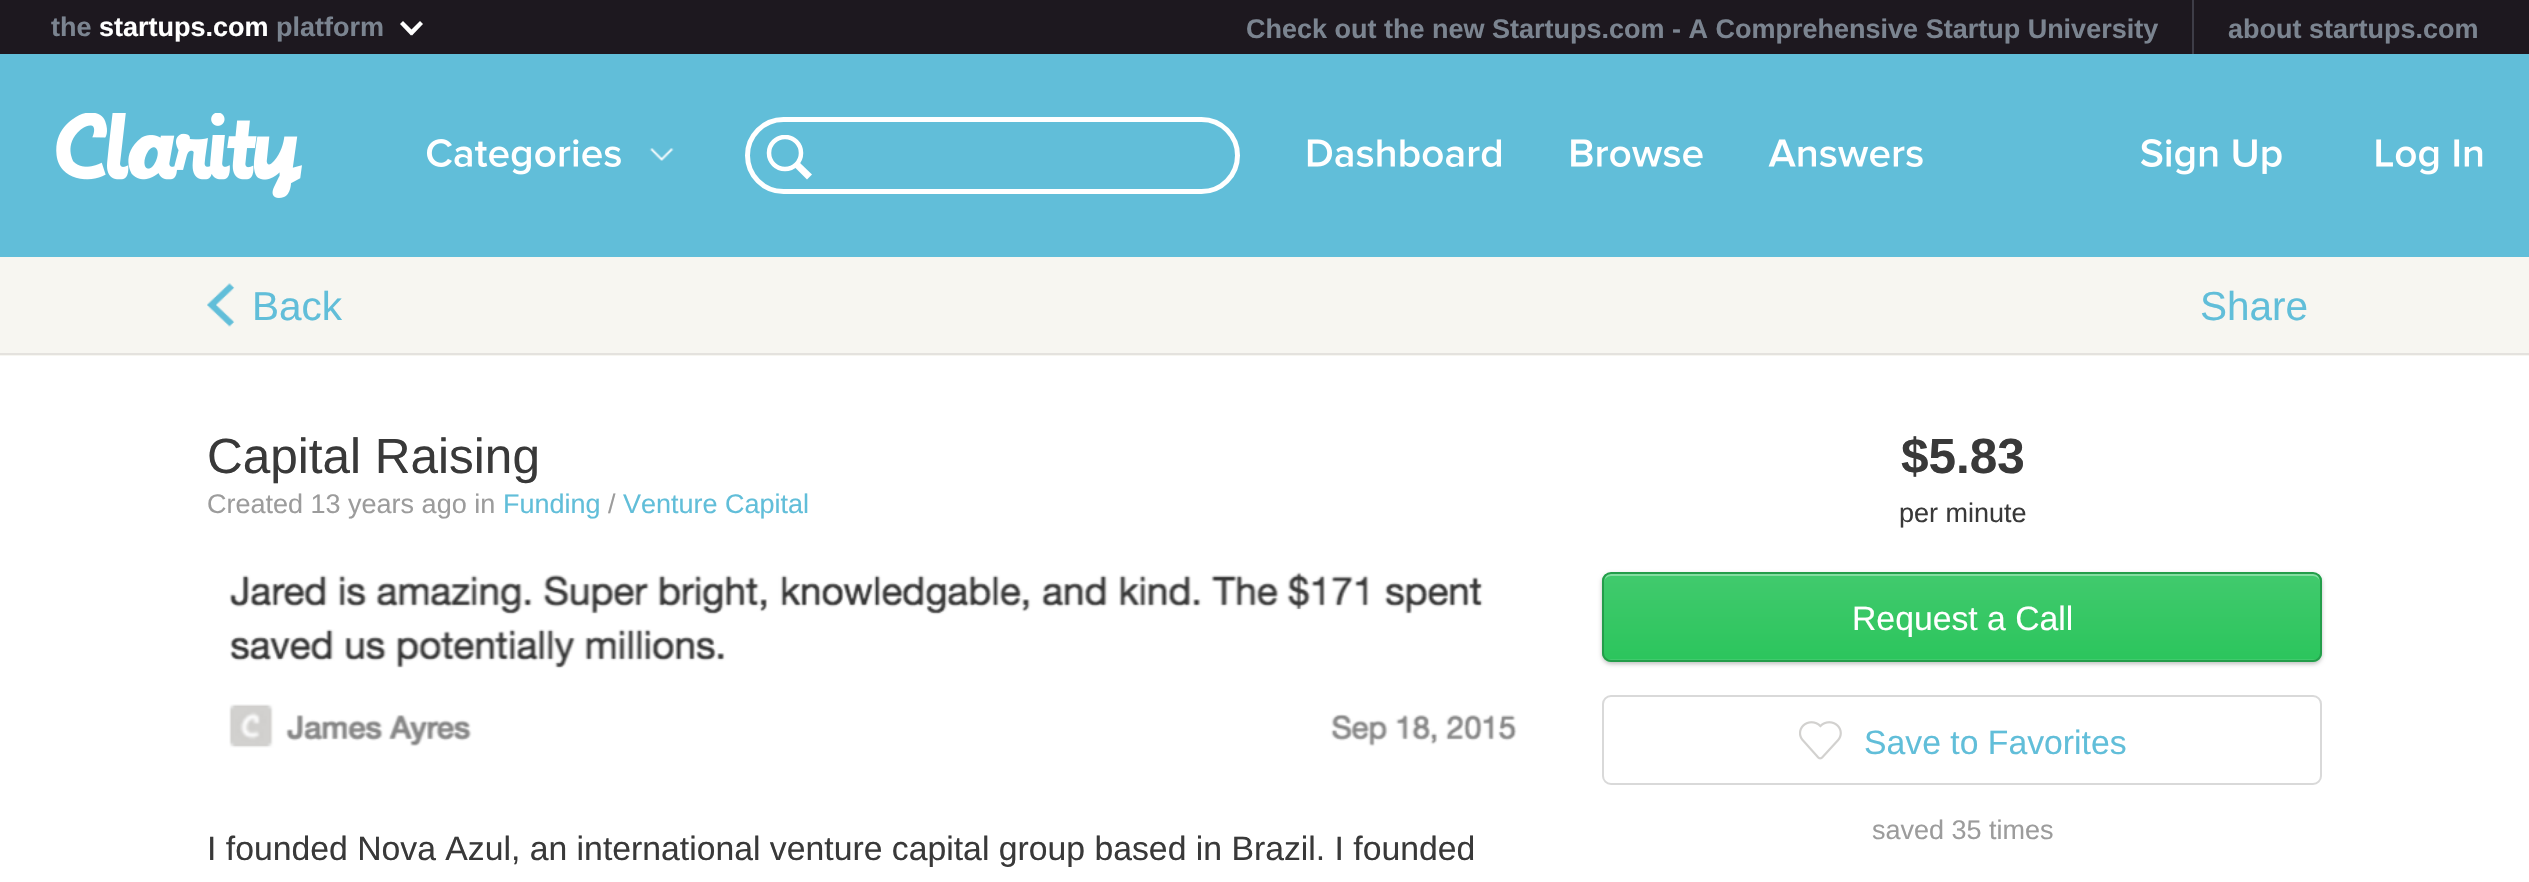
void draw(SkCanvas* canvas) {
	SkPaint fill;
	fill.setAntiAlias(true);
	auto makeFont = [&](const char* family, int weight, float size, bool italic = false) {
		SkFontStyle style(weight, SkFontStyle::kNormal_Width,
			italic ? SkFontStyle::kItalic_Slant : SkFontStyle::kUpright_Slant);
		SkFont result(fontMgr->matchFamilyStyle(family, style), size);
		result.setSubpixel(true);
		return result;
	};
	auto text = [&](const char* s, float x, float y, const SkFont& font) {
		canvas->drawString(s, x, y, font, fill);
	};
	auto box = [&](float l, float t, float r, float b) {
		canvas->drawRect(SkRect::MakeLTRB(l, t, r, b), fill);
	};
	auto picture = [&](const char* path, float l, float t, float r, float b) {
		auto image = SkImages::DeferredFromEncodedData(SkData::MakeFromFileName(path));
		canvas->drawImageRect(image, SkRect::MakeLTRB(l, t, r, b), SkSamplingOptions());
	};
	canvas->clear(0xFFFFFFFF);
	fill.setColor(0xFF1D181F);
	box(0, 0, 2529, 54);
	fill.setColor(0xFFFFFFFF);
	canvas->drawPath(SkPathBuilder().moveTo(414, 32).lineTo(411, 35.5f).lineTo(400, 24).lineTo(403, 21).close().detach(), fill);
	canvas->drawPath(SkPathBuilder().moveTo(412, 35.5f).lineTo(409, 32).lineTo(420, 21).lineTo(423, 24).close().detach(), fill);
	fill.setColor(0xFF3E3D47);
	box(2192, 0, 2194, 54);
	fill.setColor(0xFF61BED9);
	box(0, 54, 2529, 257);
	picture("image0.png", 56, 113, 302, 198);
	picture("image1.png", 427, 139, 621, 175);
	picture("image2.png", 649, 148, 674, 161);
	fill.setStyle(SkPaint::kStroke_Style);
	fill.setStrokeWidth(5);
	fill.setColor(0xFFFFFFFF);
	canvas->drawRoundRect(SkRect::MakeLTRB(747.5f, 119.5f, 1237.5f, 191.5f), 36, 36, fill);
	canvas->save();
	canvas->clipRect(SkRect::MakeLTRB(745, 135, 812, 180));
	fill.setStrokeWidth(4.5f);
	canvas->drawCircle(785, 153, 16, fill);
	canvas->restore();
	fill.setStyle(SkPaint::kFill_Style);
	canvas->drawPath(SkPathBuilder(SkPathFillType::kEvenOdd).moveTo(794.5f, 167).lineTo(799, 162).lineTo(812, 174.5f).lineTo(807, 179.5f).close().detach(), fill);
	picture("image3.png", 1307, 139, 1501, 167);
	picture("image4.png", 1571, 139, 1703, 167);
	picture("image5.png", 1768, 139, 1923, 167);
	picture("image6.png", 2141, 139, 2282, 175);
	picture("image7.png", 2376, 139, 2483, 175);
	fill.setColor(0xFFF7F6F1);
	box(0, 257, 2529, 356);
	fill.setColor(0xFFE4E2DE);
	box(0, 353, 2529, 355);
	picture("image8.png", 207, 283, 235, 327);
	picture("image9.png", 229, 572, 1517, 748);
	fill.setColor(0x40000000);
	fill.setMaskFilter(SkMaskFilter::MakeBlur(kNormal_SkBlurStyle, 2));
	canvas->drawRoundRect(SkRect::MakeLTRB(1602, 574, 2322, 664), 9, 9, fill);
	fill.setMaskFilter(nullptr);
	canvas->save();
	canvas->clipPath(SkPathBuilder().moveTo(1611, 572).lineTo(2313, 572).cubicTo(2318, 572, 2322, 576, 2322, 581).lineTo(2322, 653).cubicTo(2322, 658, 2318, 662, 2313, 662).lineTo(1611, 662).cubicTo(1606, 662, 1602, 658, 1602, 653).lineTo(1602, 581).cubicTo(1602, 576, 1606, 572, 1611, 572).close().detach(), true);
	{
		const SkColor colors[] = {0xFF41CA6D, 0xFF2CC55D};
		const float stops[] = {0, 1};
		const SkPoint ends[] = {{1962, 574}, {1962, 659}};
		fill.setShader(SkGradientShader::MakeLinear(ends, colors, stops, 2, SkTileMode::kClamp));
		fill.setAlpha(255);
	}
	box(1602, 574, 2322, 659);
	{
		const SkColor colors[] = {0xFF41CA6D, 0xFF2CC55D};
		const float stops[] = {0, 1};
		const SkPoint ends[] = {{1962, 659}, {1962, 745}};
		fill.setShader(SkGradientShader::MakeLinear(ends, colors, stops, 2, SkTileMode::kClamp));
		fill.setAlpha(255);
	}
	box(1602, 659, 2322, 662);
	canvas->restore();
	fill.setShader(nullptr);
	fill.setColor(0xFF83DDA0);
	canvas->drawPath(SkPathBuilder().moveTo(1611, 576).lineTo(2313, 576).cubicTo(2317, 576, 2320, 579, 2320, 583).cubicTo(2320, 579, 2318, 574, 2313, 574).lineTo(1611, 574).cubicTo(1606, 574, 1604, 579, 1604, 583).cubicTo(1604, 579, 1607, 576, 1611, 576).close().detach(), fill);
	fill.setStyle(SkPaint::kStroke_Style);
	fill.setStrokeWidth(2);
	fill.setColor(0xFF239D4A);
	canvas->drawRoundRect(SkRect::MakeLTRB(1603, 573, 2321, 661), 8, 8, fill);
	fill.setColor(0xFFD9D9D9);
	canvas->drawRoundRect(SkRect::MakeLTRB(1603, 696, 2321, 784), 8, 8, fill);
	picture("image10.png", 1799, 721, 1842, 760);
	auto font1 = makeFont("Liberation Sans", 700, 27);
	fill.setStyle(SkPaint::kFill_Style);
	fill.setColor(0xFF7B8490);
	text("the", 51, 36, font1);
	fill.setColor(0xFFFFFFFF);
	text("startups.com", 99, 36, font1);
	fill.setColor(0xFF7B8490);
	text("platform", 276, 36, font1);
	text("Check out the new Startups.com - A Comprehensive Startup University", 1246, 38, font1);
	text("about startups.com", 2228, 38, font1);
	auto font2 = makeFont("Liberation Sans", 400, 40.5f);
	fill.setColor(0xFF61BED9);
	text("Back", 252, 320, font2);
	text("Share", 2200, 320, font2);
	auto font3 = makeFont("Liberation Sans", 400, 49.5f);
	fill.setColor(0xFF393939);
	text("Capital Raising", 207, 473, font3);
	auto font4 = makeFont("Liberation Sans", 400, 27);
	fill.setColor(0xFF9C9C9C);
	text("Created 13 years ago in", 207, 513, font4);
	fill.setColor(0xFF61BED9);
	text("Funding", 503, 513, font4);
	fill.setColor(0xFF9C9C9C);
	text("/", 608, 513, font4);
	fill.setColor(0xFF61BED9);
	text("Venture Capital", 623, 513, font4);
	auto font5 = makeFont("Liberation Sans", 400, 33.75f);
	fill.setColor(0xFF393939);
	text("I founded Nova Azul, an international venture capital group based in Brazil. I founded", 207, 860, font5);
	auto font6 = makeFont("Liberation Sans", 700, 49.5f);
	text("$5.83", 1901, 473, font6);
	text("per minute", 1899, 522, font4);
	fill.setColor(0xFFFFFFFF);
	text("Request a Call", 1852, 630, font5);
	fill.setColor(0xFF61BED9);
	text("Save to Favorites", 1864, 754, font5);
	fill.setColor(0xFF9C9C9C);
	text("saved 35 times", 1872, 839, font4);
}
